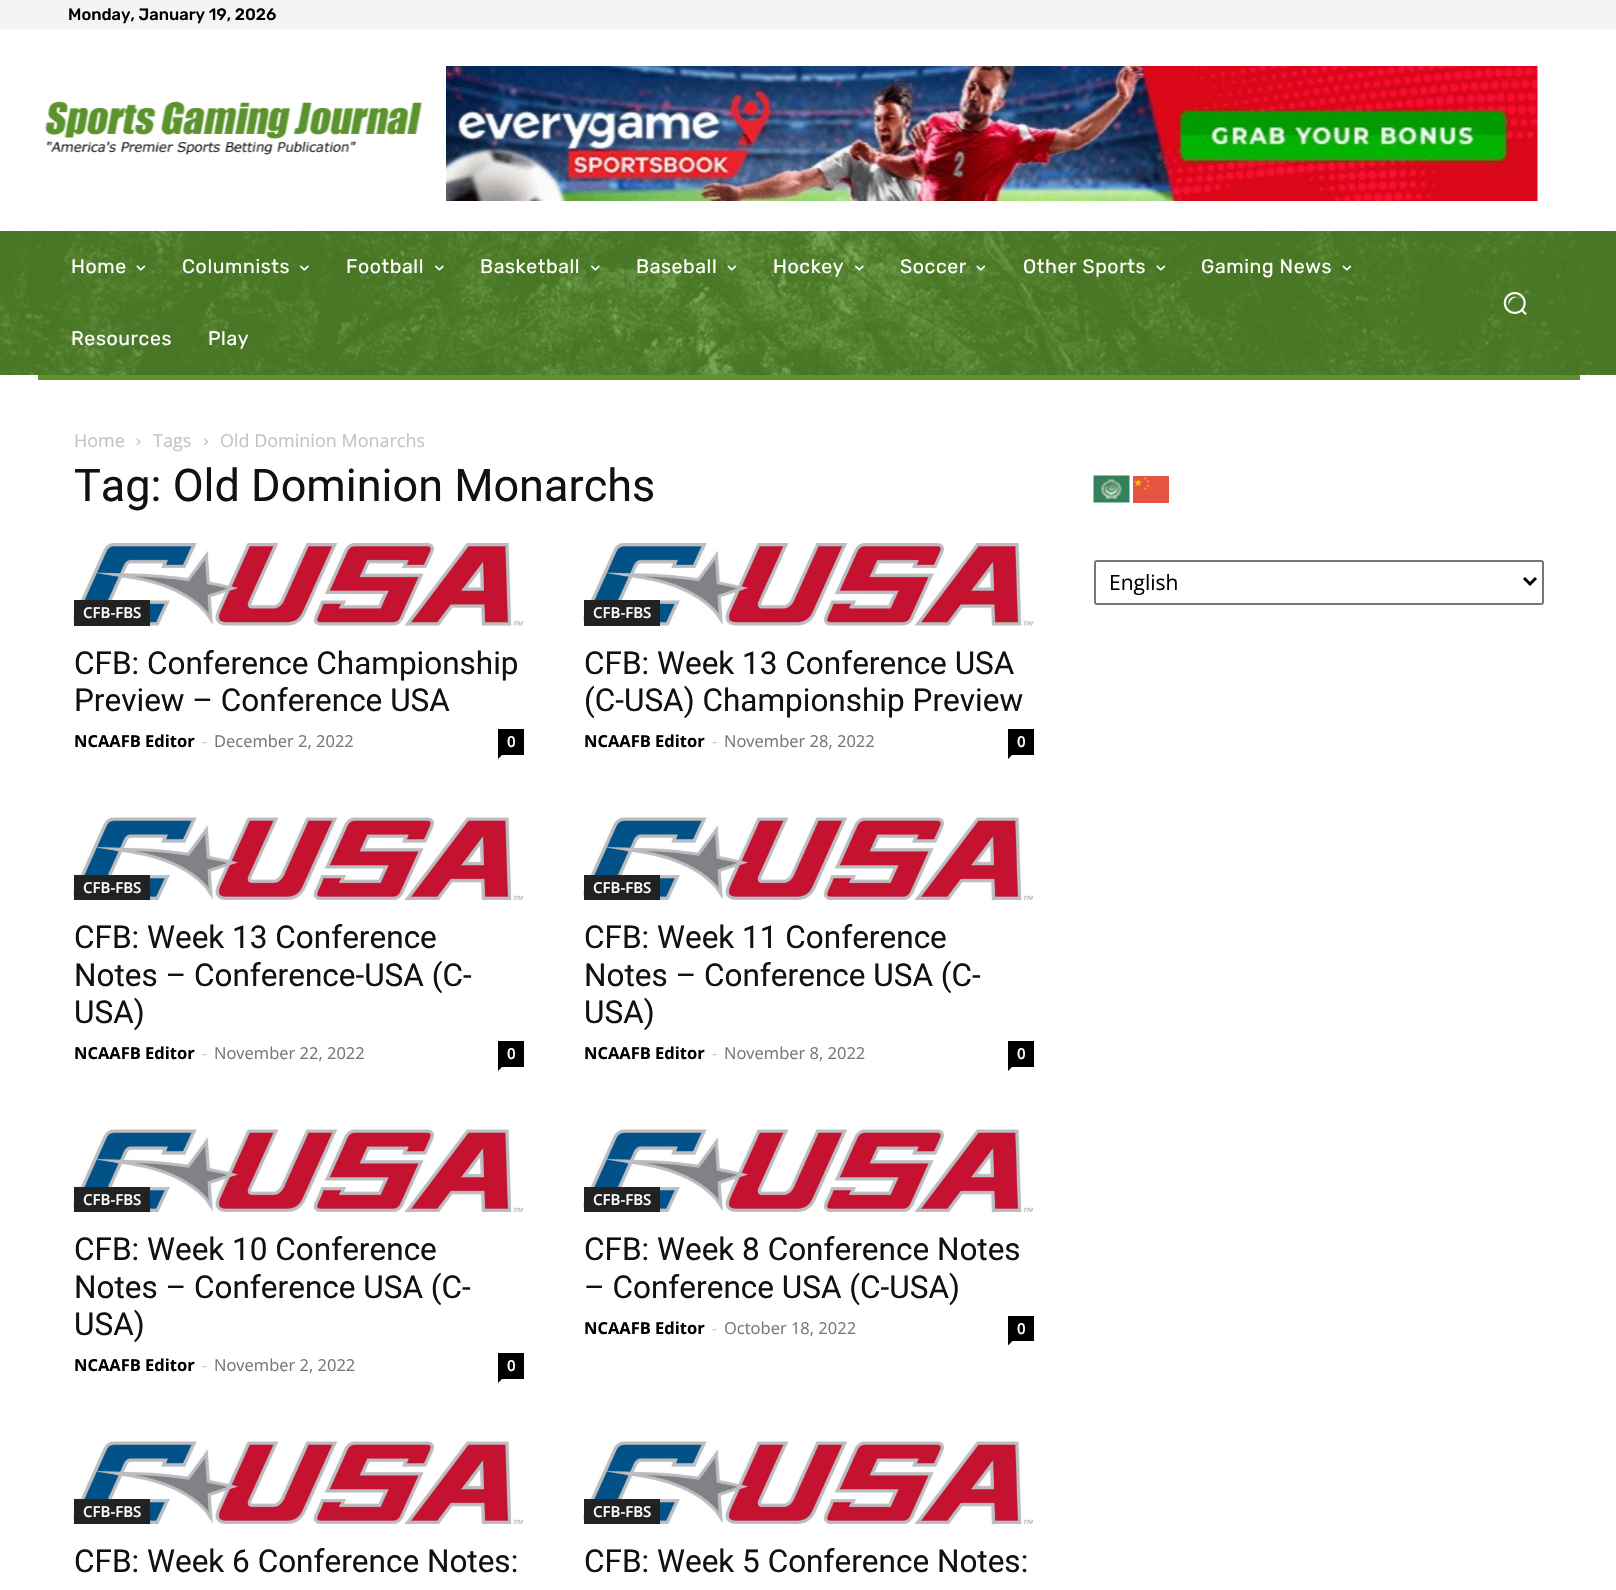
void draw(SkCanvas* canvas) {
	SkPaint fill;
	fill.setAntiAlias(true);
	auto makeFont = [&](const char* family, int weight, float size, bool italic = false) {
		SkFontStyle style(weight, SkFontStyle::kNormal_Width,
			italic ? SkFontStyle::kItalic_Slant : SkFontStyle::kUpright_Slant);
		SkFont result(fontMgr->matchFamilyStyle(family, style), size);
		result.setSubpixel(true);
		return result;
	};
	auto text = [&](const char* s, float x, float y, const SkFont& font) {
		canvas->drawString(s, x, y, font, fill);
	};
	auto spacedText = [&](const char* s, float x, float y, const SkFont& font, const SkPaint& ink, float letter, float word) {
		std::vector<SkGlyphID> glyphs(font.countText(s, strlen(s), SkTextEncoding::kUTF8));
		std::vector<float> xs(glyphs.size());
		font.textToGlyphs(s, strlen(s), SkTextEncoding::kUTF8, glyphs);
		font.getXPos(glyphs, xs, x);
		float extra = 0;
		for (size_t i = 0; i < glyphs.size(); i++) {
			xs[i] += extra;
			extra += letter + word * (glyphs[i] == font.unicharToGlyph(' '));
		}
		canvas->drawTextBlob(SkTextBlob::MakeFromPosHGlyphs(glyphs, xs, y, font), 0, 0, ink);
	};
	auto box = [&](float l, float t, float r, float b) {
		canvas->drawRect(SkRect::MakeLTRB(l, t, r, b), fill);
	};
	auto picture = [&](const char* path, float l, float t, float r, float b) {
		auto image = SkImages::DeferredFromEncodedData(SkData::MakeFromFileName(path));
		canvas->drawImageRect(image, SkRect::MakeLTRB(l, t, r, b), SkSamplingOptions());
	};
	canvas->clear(0xFFFFFFFF);
	fill.setColor(0xFFF4F4F4);
	box(0, 0, 1616, 29);
	picture("image0.png", 45, 101, 423, 155);
	picture("image1.png", 446, 66, 1538, 201);
	fill.setColor(0xFF5B932D);
	box(0, 231, 1616, 375);
	picture("image2.png", 0, 231, 1616, 375);
	picture("image3.png", 136, 265, 146, 271);
	picture("image4.png", 300, 265, 309, 271);
	picture("image5.png", 435, 265, 444, 271);
	picture("image6.png", 591, 265, 600, 271);
	picture("image7.png", 727, 265, 737, 271);
	picture("image8.png", 855, 265, 864, 271);
	picture("image9.png", 976, 265, 986, 271);
	picture("image10.png", 1156, 265, 1166, 271);
	picture("image11.png", 1342, 265, 1352, 271);
	picture("image12.png", 1503, 292, 1527, 315);
	box(38, 375, 1580, 380);
	picture("image13.png", 136, 438, 141, 446);
	picture("image14.png", 204, 438, 208, 446);
	picture("image15.png", 73, 543, 524, 626);
	fill.setColor(0xFF222222);
	box(74, 600, 150, 626);
	fill.setColor(0xFF000000);
	box(498, 729, 524, 755);
	canvas->drawPath(SkPathBuilder().moveTo(498, 754.5f).lineTo(502.5f, 754.5f).lineTo(498, 759).close().detach(), fill);
	picture("image15.png", 583, 543, 1034, 626);
	fill.setColor(0xFF222222);
	box(584, 600, 660, 626);
	fill.setColor(0xFF000000);
	box(1008, 729, 1034, 755);
	canvas->drawPath(SkPathBuilder().moveTo(1008, 754.5f).lineTo(1012.5f, 754.5f).lineTo(1008, 759).close().detach(), fill);
	picture("image16.png", 73, 817, 524, 900);
	fill.setColor(0xFF222222);
	box(74, 875, 150, 900);
	fill.setColor(0xFF000000);
	box(498, 1041, 524, 1067);
	canvas->drawPath(SkPathBuilder().moveTo(498, 1066.5f).lineTo(502.5f, 1066.5f).lineTo(498, 1071).close().detach(), fill);
	picture("image16.png", 583, 817, 1034, 900);
	fill.setColor(0xFF222222);
	box(584, 875, 660, 900);
	fill.setColor(0xFF000000);
	box(1008, 1041, 1034, 1067);
	canvas->drawPath(SkPathBuilder().moveTo(1008, 1066.5f).lineTo(1012.5f, 1066.5f).lineTo(1008, 1071).close().detach(), fill);
	picture("image17.png", 73, 1129, 524, 1212);
	fill.setColor(0xFF222222);
	box(74, 1187, 150, 1212);
	fill.setColor(0xFF000000);
	box(498, 1353, 524, 1379);
	canvas->drawPath(SkPathBuilder().moveTo(498, 1378.5f).lineTo(502.5f, 1378.5f).lineTo(498, 1383).close().detach(), fill);
	picture("image17.png", 583, 1129, 1034, 1212);
	fill.setColor(0xFF222222);
	box(584, 1187, 660, 1212);
	fill.setColor(0xFF000000);
	box(1008, 1316, 1034, 1341);
	canvas->drawPath(SkPathBuilder().moveTo(1008, 1341).lineTo(1012.5f, 1341).lineTo(1008, 1345.5f).close().detach(), fill);
	picture("image16.png", 73, 1441, 524, 1524);
	fill.setColor(0xFF222222);
	box(74, 1499, 150, 1524);
	picture("image16.png", 583, 1441, 1034, 1524);
	box(584, 1499, 660, 1524);
	picture("image18.png", 1093, 475, 1130, 503);
	picture("image19.png", 1133, 476, 1169, 503);
	fill.setStyle(SkPaint::kStroke_Style);
	fill.setStrokeWidth(2);
	fill.setColor(0xFF767676);
	canvas->drawRoundRect(SkRect::MakeLTRB(1095, 561, 1543, 604), 2, 2, fill);
	fill.setStrokeWidth(3);
	fill.setColor(0xFF000000);
	canvas->drawPath(SkPathBuilder().moveTo(1524, 578).lineTo(1530, 584).lineTo(1536, 578).detach(), fill);
	auto font1 = makeFont("Rubik", 500, 16.5f);
	fill.setStyle(SkPaint::kFill_Style);
	text("Monday, January 19, 2026", 68, 20, font1);
	auto font2 = makeFont("Rubik", 400, 19.5f);
	fill.setColor(0xFFFFFFFF);
	spacedText("Home", 71, 273, font2, fill, 0.6f, 0);
	spacedText("Columnists", 182, 273, font2, fill, 0.6f, 0);
	spacedText("Football", 346, 273, font2, fill, 0.6f, 0);
	spacedText("Basketball", 480, 273, font2, fill, 0.6f, 0);
	spacedText("Baseball", 636, 273, font2, fill, 0.6f, 0);
	spacedText("Hockey", 773, 273, font2, fill, 0.6f, 0);
	spacedText("Soccer", 900, 273, font2, fill, 0.6f, 0);
	spacedText("Other Sports", 1023, 273, font2, fill, 0.6f, 0);
	spacedText("Gaming News", 1201, 273, font2, fill, 0.6f, 0);
	spacedText("Resources", 71, 345, font2, fill, 0.6f, 0);
	spacedText("Play", 208, 345, font2, fill, 0.6f, 0);
	auto font3 = makeFont("Open Sans", 400, 18);
	fill.setColor(0xFFC3C3C3);
	text("Home", 74, 447, font3);
	text("Tags", 153, 447, font3);
	text("Old Dominion Monarchs", 220, 447, font3);
	auto font4 = makeFont("Roboto", 400, 45);
	fill.setColor(0xFF111111);
	text("Tag: Old Dominion Monarchs", 74, 501, font4);
	auto font5 = makeFont("Open Sans", 600, 15);
	fill.setColor(0xFFFFFFFF);
	text("CFB-FBS", 83, 618, font5);
	auto font6 = makeFont("Roboto", 400, 31.5f);
	fill.setColor(0xFF111111);
	text("CFB: Conference Championship", 74, 674, font6);
	text("Preview – Conference USA", 74, 711, font6);
	auto font7 = makeFont("Open Sans", 700, 16.5f);
	fill.setColor(0xFF000000);
	text("NCAAFB Editor", 74, 747, font7);
	auto font8 = makeFont("Open Sans", 400, 16.5f);
	fill.setColor(0xFFCCCCCC);
	text("-", 202, 747, font8);
	fill.setColor(0xFF767676);
	text("December 2, 2022", 214, 747, font8);
	fill.setColor(0xFFFFFFFF);
	text("0", 507, 747, font5);
	text("CFB-FBS", 593, 618, font5);
	fill.setColor(0xFF111111);
	text("CFB: Week 13 Conference USA", 584, 674, font6);
	text("(C-USA) Championship Preview", 584, 711, font6);
	fill.setColor(0xFF000000);
	text("NCAAFB Editor", 584, 747, font7);
	fill.setColor(0xFFCCCCCC);
	text("-", 712, 747, font8);
	fill.setColor(0xFF767676);
	text("November 28, 2022", 724, 747, font8);
	fill.setColor(0xFFFFFFFF);
	text("0", 1017, 747, font5);
	text("CFB-FBS", 83, 893, font5);
	fill.setColor(0xFF111111);
	text("CFB: Week 13 Conference", 74, 948, font6);
	text("Notes – Conference-USA (C-", 74, 986, font6);
	text("USA)", 74, 1023, font6);
	fill.setColor(0xFF000000);
	text("NCAAFB Editor", 74, 1059, font7);
	fill.setColor(0xFFCCCCCC);
	text("-", 202, 1059, font8);
	fill.setColor(0xFF767676);
	text("November 22, 2022", 214, 1059, font8);
	fill.setColor(0xFFFFFFFF);
	text("0", 507, 1059, font5);
	text("CFB-FBS", 593, 893, font5);
	fill.setColor(0xFF111111);
	text("CFB: Week 11 Conference", 584, 948, font6);
	text("Notes – Conference USA (C-", 584, 986, font6);
	text("USA)", 584, 1023, font6);
	fill.setColor(0xFF000000);
	text("NCAAFB Editor", 584, 1059, font7);
	fill.setColor(0xFFCCCCCC);
	text("-", 712, 1059, font8);
	fill.setColor(0xFF767676);
	text("November 8, 2022", 724, 1059, font8);
	fill.setColor(0xFFFFFFFF);
	text("0", 1017, 1059, font5);
	text("CFB-FBS", 83, 1205, font5);
	fill.setColor(0xFF111111);
	text("CFB: Week 10 Conference", 74, 1260, font6);
	text("Notes – Conference USA (C-", 74, 1298, font6);
	text("USA)", 74, 1335, font6);
	fill.setColor(0xFF000000);
	text("NCAAFB Editor", 74, 1371, font7);
	fill.setColor(0xFFCCCCCC);
	text("-", 202, 1371, font8);
	fill.setColor(0xFF767676);
	text("November 2, 2022", 214, 1371, font8);
	fill.setColor(0xFFFFFFFF);
	text("0", 507, 1371, font5);
	text("CFB-FBS", 593, 1205, font5);
	fill.setColor(0xFF111111);
	text("CFB: Week 8 Conference Notes", 584, 1260, font6);
	text("– Conference USA (C-USA)", 584, 1298, font6);
	fill.setColor(0xFF000000);
	text("NCAAFB Editor", 584, 1334, font7);
	fill.setColor(0xFFCCCCCC);
	text("-", 712, 1334, font8);
	fill.setColor(0xFF767676);
	text("October 18, 2022", 724, 1334, font8);
	fill.setColor(0xFFFFFFFF);
	text("0", 1017, 1334, font5);
	text("CFB-FBS", 83, 1517, font5);
	fill.setColor(0xFF111111);
	text("CFB: Week 6 Conference Notes:", 74, 1572, font6);
	fill.setColor(0xFFFFFFFF);
	text("CFB-FBS", 593, 1517, font5);
	fill.setColor(0xFF111111);
	text("CFB: Week 5 Conference Notes:", 584, 1572, font6);
	auto font9 = makeFont("Open Sans", 400, 21);
	fill.setColor(0xFF000000);
	text("English", 1109, 590, font9);
}
